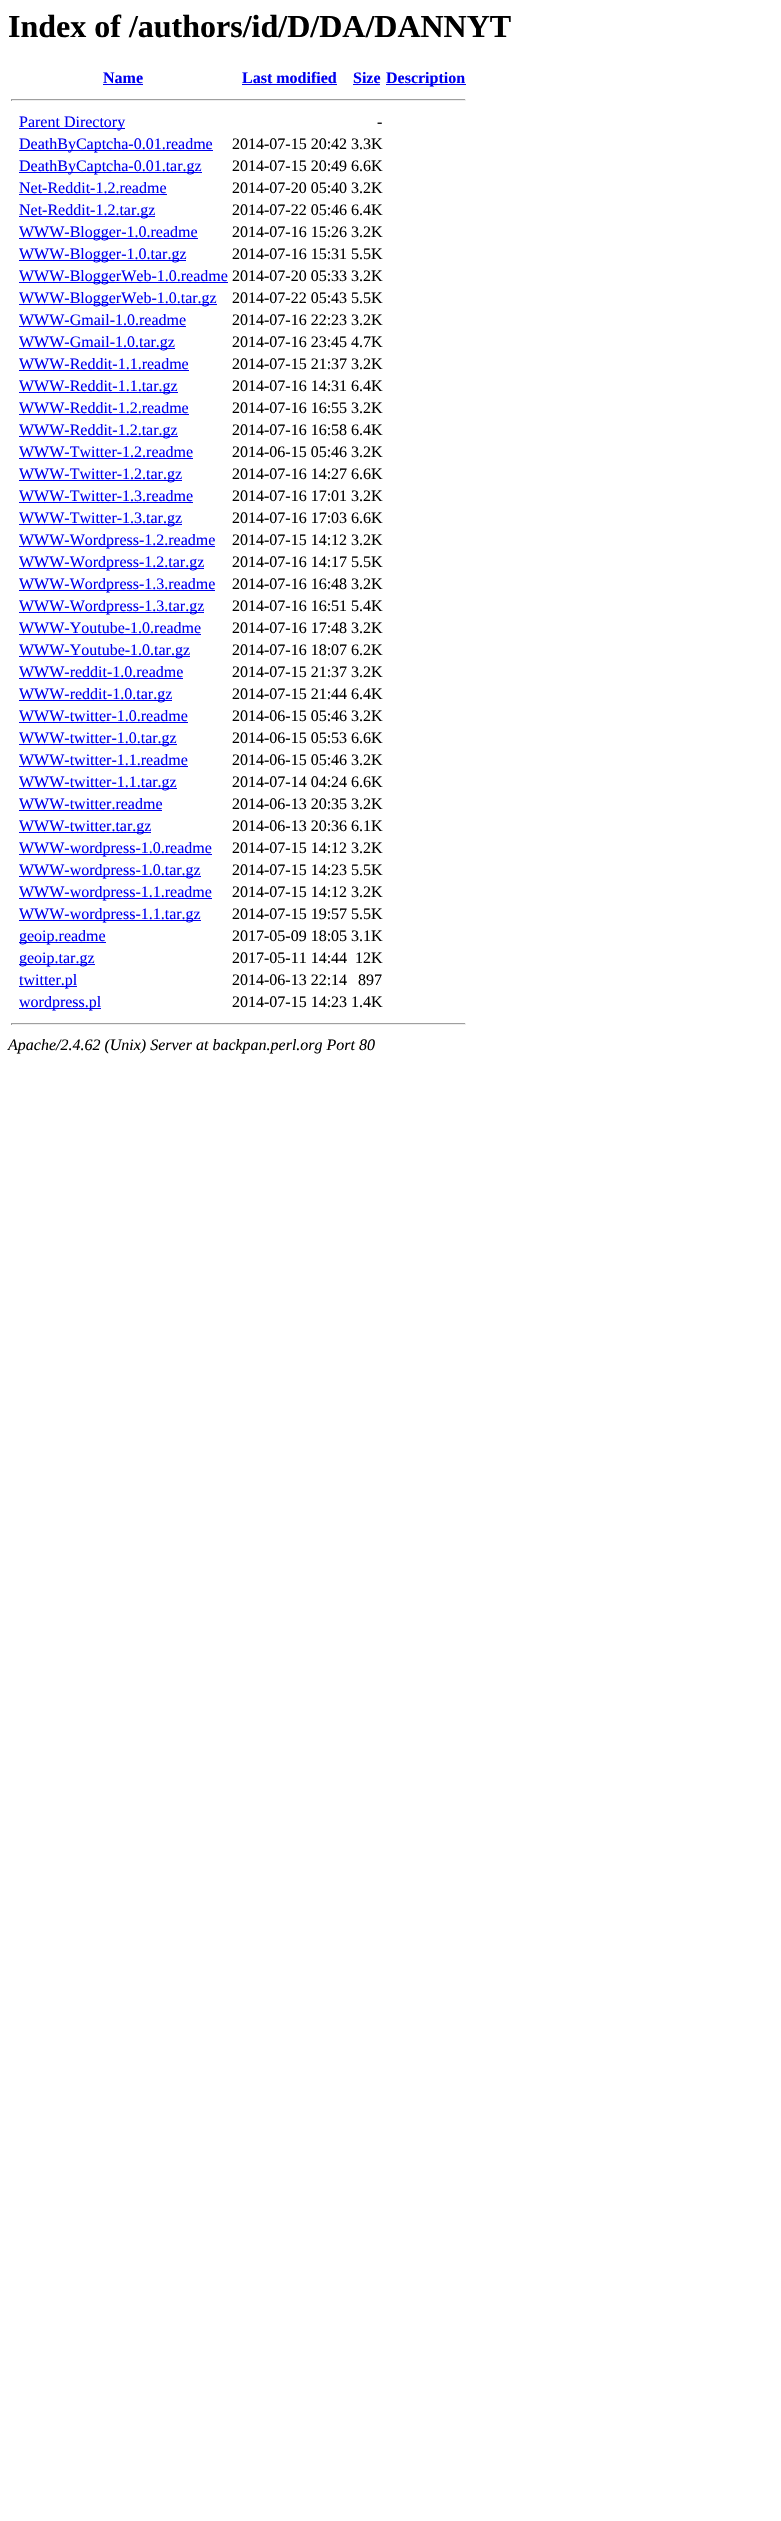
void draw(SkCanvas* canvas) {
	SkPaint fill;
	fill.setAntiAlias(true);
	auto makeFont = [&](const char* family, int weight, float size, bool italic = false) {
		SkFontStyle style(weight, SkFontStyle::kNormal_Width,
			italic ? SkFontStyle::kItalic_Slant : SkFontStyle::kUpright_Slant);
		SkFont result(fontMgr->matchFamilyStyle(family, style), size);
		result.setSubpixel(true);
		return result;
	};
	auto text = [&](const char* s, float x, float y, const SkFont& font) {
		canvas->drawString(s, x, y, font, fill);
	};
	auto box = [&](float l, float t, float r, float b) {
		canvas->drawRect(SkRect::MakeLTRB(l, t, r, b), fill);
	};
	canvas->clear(0xFFFFFFFF);
	fill.setColor(0xFF0000EE);
	box(103, 84, 143, 85);
	box(242, 84, 337, 85);
	box(353, 84, 380, 85);
	box(386, 84, 466, 85);
	fill.setColor(0xFF9F9F9F);
	box(11, 99, 466, 100);
	fill.setColor(0xFFEEEEEE);
	box(465, 99, 466, 101);
	box(11, 100, 466, 101);
	fill.setColor(0xFF9F9F9F);
	box(11, 99, 12, 101);
	fill.setColor(0xFF0000EE);
	box(19, 128, 125, 129);
	box(19, 150, 213, 151);
	box(19, 172, 202, 173);
	box(19, 194, 167, 195);
	box(19, 216, 155, 217);
	box(19, 238, 198, 239);
	box(19, 260, 186, 261);
	box(19, 282, 228, 283);
	box(19, 304, 217, 305);
	box(19, 326, 186, 327);
	box(19, 348, 175, 349);
	box(19, 370, 189, 371);
	box(19, 392, 178, 393);
	box(19, 414, 189, 415);
	box(19, 436, 178, 437);
	box(19, 458, 193, 459);
	box(19, 480, 182, 481);
	box(19, 502, 193, 503);
	box(19, 524, 182, 525);
	box(19, 546, 215, 547);
	box(19, 568, 204, 569);
	box(19, 590, 215, 591);
	box(19, 612, 204, 613);
	box(19, 634, 201, 635);
	box(19, 656, 190, 657);
	box(19, 678, 183, 679);
	box(19, 700, 172, 701);
	box(19, 722, 188, 723);
	box(19, 744, 177, 745);
	box(19, 766, 188, 767);
	box(19, 788, 177, 789);
	box(19, 810, 162, 811);
	box(19, 832, 151, 833);
	box(19, 854, 212, 855);
	box(19, 876, 201, 877);
	box(19, 898, 212, 899);
	box(19, 920, 201, 921);
	box(19, 942, 106, 943);
	box(19, 964, 95, 965);
	box(19, 986, 77, 987);
	box(19, 1008, 101, 1009);
	fill.setColor(0xFF9F9F9F);
	box(11, 1023, 466, 1024);
	fill.setColor(0xFFEEEEEE);
	box(465, 1023, 466, 1025);
	box(11, 1024, 466, 1025);
	fill.setColor(0xFF9F9F9F);
	box(11, 1023, 12, 1025);
	auto font1 = makeFont("Liberation Serif", 700, 32);
	fill.setColor(0xFF000000);
	text("Index of /authors/id/D/DA/DANNYT", 8, 37, font1);
	auto font2 = makeFont("Liberation Serif", 700, 16);
	fill.setColor(0xFF0000EE);
	text("Name", 103, 83, font2);
	text("Last modified", 242, 83, font2);
	text("Size", 353, 83, font2);
	text("Description", 386, 83, font2);
	auto font3 = makeFont("Liberation Serif", 400, 16);
	text("Parent Directory", 19, 127, font3);
	fill.setColor(0xFF000000);
	text("-", 377, 127, font3);
	fill.setColor(0xFF0000EE);
	text("DeathByCaptcha-0.01.readme", 19, 149, font3);
	fill.setColor(0xFF000000);
	text("2014-07-15 20:42 3.3K", 232, 149, font3);
	fill.setColor(0xFF0000EE);
	text("DeathByCaptcha-0.01.tar.gz", 19, 171, font3);
	fill.setColor(0xFF000000);
	text("2014-07-15 20:49 6.6K", 232, 171, font3);
	fill.setColor(0xFF0000EE);
	text("Net-Reddit-1.2.readme", 19, 193, font3);
	fill.setColor(0xFF000000);
	text("2014-07-20 05:40 3.2K", 232, 193, font3);
	fill.setColor(0xFF0000EE);
	text("Net-Reddit-1.2.tar.gz", 19, 215, font3);
	fill.setColor(0xFF000000);
	text("2014-07-22 05:46 6.4K", 232, 215, font3);
	fill.setColor(0xFF0000EE);
	text("WWW-Blogger-1.0.readme", 19, 237, font3);
	fill.setColor(0xFF000000);
	text("2014-07-16 15:26 3.2K", 232, 237, font3);
	fill.setColor(0xFF0000EE);
	text("WWW-Blogger-1.0.tar.gz", 19, 259, font3);
	fill.setColor(0xFF000000);
	text("2014-07-16 15:31 5.5K", 232, 259, font3);
	fill.setColor(0xFF0000EE);
	text("WWW-BloggerWeb-1.0.readme", 19, 281, font3);
	fill.setColor(0xFF000000);
	text("2014-07-20 05:33 3.2K", 232, 281, font3);
	fill.setColor(0xFF0000EE);
	text("WWW-BloggerWeb-1.0.tar.gz", 19, 303, font3);
	fill.setColor(0xFF000000);
	text("2014-07-22 05:43 5.5K", 232, 303, font3);
	fill.setColor(0xFF0000EE);
	text("WWW-Gmail-1.0.readme", 19, 325, font3);
	fill.setColor(0xFF000000);
	text("2014-07-16 22:23 3.2K", 232, 325, font3);
	fill.setColor(0xFF0000EE);
	text("WWW-Gmail-1.0.tar.gz", 19, 347, font3);
	fill.setColor(0xFF000000);
	text("2014-07-16 23:45 4.7K", 232, 347, font3);
	fill.setColor(0xFF0000EE);
	text("WWW-Reddit-1.1.readme", 19, 369, font3);
	fill.setColor(0xFF000000);
	text("2014-07-15 21:37 3.2K", 232, 369, font3);
	fill.setColor(0xFF0000EE);
	text("WWW-Reddit-1.1.tar.gz", 19, 391, font3);
	fill.setColor(0xFF000000);
	text("2014-07-16 14:31 6.4K", 232, 391, font3);
	fill.setColor(0xFF0000EE);
	text("WWW-Reddit-1.2.readme", 19, 413, font3);
	fill.setColor(0xFF000000);
	text("2014-07-16 16:55 3.2K", 232, 413, font3);
	fill.setColor(0xFF0000EE);
	text("WWW-Reddit-1.2.tar.gz", 19, 435, font3);
	fill.setColor(0xFF000000);
	text("2014-07-16 16:58 6.4K", 232, 435, font3);
	fill.setColor(0xFF0000EE);
	text("WWW-Twitter-1.2.readme", 19, 457, font3);
	fill.setColor(0xFF000000);
	text("2014-06-15 05:46 3.2K", 232, 457, font3);
	fill.setColor(0xFF0000EE);
	text("WWW-Twitter-1.2.tar.gz", 19, 479, font3);
	fill.setColor(0xFF000000);
	text("2014-07-16 14:27 6.6K", 232, 479, font3);
	fill.setColor(0xFF0000EE);
	text("WWW-Twitter-1.3.readme", 19, 501, font3);
	fill.setColor(0xFF000000);
	text("2014-07-16 17:01 3.2K", 232, 501, font3);
	fill.setColor(0xFF0000EE);
	text("WWW-Twitter-1.3.tar.gz", 19, 523, font3);
	fill.setColor(0xFF000000);
	text("2014-07-16 17:03 6.6K", 232, 523, font3);
	fill.setColor(0xFF0000EE);
	text("WWW-Wordpress-1.2.readme", 19, 545, font3);
	fill.setColor(0xFF000000);
	text("2014-07-15 14:12 3.2K", 232, 545, font3);
	fill.setColor(0xFF0000EE);
	text("WWW-Wordpress-1.2.tar.gz", 19, 567, font3);
	fill.setColor(0xFF000000);
	text("2014-07-16 14:17 5.5K", 232, 567, font3);
	fill.setColor(0xFF0000EE);
	text("WWW-Wordpress-1.3.readme", 19, 589, font3);
	fill.setColor(0xFF000000);
	text("2014-07-16 16:48 3.2K", 232, 589, font3);
	fill.setColor(0xFF0000EE);
	text("WWW-Wordpress-1.3.tar.gz", 19, 611, font3);
	fill.setColor(0xFF000000);
	text("2014-07-16 16:51 5.4K", 232, 611, font3);
	fill.setColor(0xFF0000EE);
	text("WWW-Youtube-1.0.readme", 19, 633, font3);
	fill.setColor(0xFF000000);
	text("2014-07-16 17:48 3.2K", 232, 633, font3);
	fill.setColor(0xFF0000EE);
	text("WWW-Youtube-1.0.tar.gz", 19, 655, font3);
	fill.setColor(0xFF000000);
	text("2014-07-16 18:07 6.2K", 232, 655, font3);
	fill.setColor(0xFF0000EE);
	text("WWW-reddit-1.0.readme", 19, 677, font3);
	fill.setColor(0xFF000000);
	text("2014-07-15 21:37 3.2K", 232, 677, font3);
	fill.setColor(0xFF0000EE);
	text("WWW-reddit-1.0.tar.gz", 19, 699, font3);
	fill.setColor(0xFF000000);
	text("2014-07-15 21:44 6.4K", 232, 699, font3);
	fill.setColor(0xFF0000EE);
	text("WWW-twitter-1.0.readme", 19, 721, font3);
	fill.setColor(0xFF000000);
	text("2014-06-15 05:46 3.2K", 232, 721, font3);
	fill.setColor(0xFF0000EE);
	text("WWW-twitter-1.0.tar.gz", 19, 743, font3);
	fill.setColor(0xFF000000);
	text("2014-06-15 05:53 6.6K", 232, 743, font3);
	fill.setColor(0xFF0000EE);
	text("WWW-twitter-1.1.readme", 19, 765, font3);
	fill.setColor(0xFF000000);
	text("2014-06-15 05:46 3.2K", 232, 765, font3);
	fill.setColor(0xFF0000EE);
	text("WWW-twitter-1.1.tar.gz", 19, 787, font3);
	fill.setColor(0xFF000000);
	text("2014-07-14 04:24 6.6K", 232, 787, font3);
	fill.setColor(0xFF0000EE);
	text("WWW-twitter.readme", 19, 809, font3);
	fill.setColor(0xFF000000);
	text("2014-06-13 20:35 3.2K", 232, 809, font3);
	fill.setColor(0xFF0000EE);
	text("WWW-twitter.tar.gz", 19, 831, font3);
	fill.setColor(0xFF000000);
	text("2014-06-13 20:36 6.1K", 232, 831, font3);
	fill.setColor(0xFF0000EE);
	text("WWW-wordpress-1.0.readme", 19, 853, font3);
	fill.setColor(0xFF000000);
	text("2014-07-15 14:12 3.2K", 232, 853, font3);
	fill.setColor(0xFF0000EE);
	text("WWW-wordpress-1.0.tar.gz", 19, 875, font3);
	fill.setColor(0xFF000000);
	text("2014-07-15 14:23 5.5K", 232, 875, font3);
	fill.setColor(0xFF0000EE);
	text("WWW-wordpress-1.1.readme", 19, 897, font3);
	fill.setColor(0xFF000000);
	text("2014-07-15 14:12 3.2K", 232, 897, font3);
	fill.setColor(0xFF0000EE);
	text("WWW-wordpress-1.1.tar.gz", 19, 919, font3);
	fill.setColor(0xFF000000);
	text("2014-07-15 19:57 5.5K", 232, 919, font3);
	fill.setColor(0xFF0000EE);
	text("geoip.readme", 19, 941, font3);
	fill.setColor(0xFF000000);
	text("2017-05-09 18:05 3.1K", 232, 941, font3);
	fill.setColor(0xFF0000EE);
	text("geoip.tar.gz", 19, 963, font3);
	fill.setColor(0xFF000000);
	text("2017-05-11 14:44", 232, 963, font3);
	text("12K", 355, 963, font3);
	fill.setColor(0xFF0000EE);
	text("twitter.pl", 19, 985, font3);
	fill.setColor(0xFF000000);
	text("2014-06-13 22:14", 232, 985, font3);
	text("897", 358, 985, font3);
	fill.setColor(0xFF0000EE);
	text("wordpress.pl", 19, 1007, font3);
	fill.setColor(0xFF000000);
	text("2014-07-15 14:23 1.4K", 232, 1007, font3);
	auto font4 = makeFont("Liberation Serif", 400, 16, true);
	text("Apache/2.4.62 (Unix) Server at backpan.perl.org Port 80", 8, 1050, font4);
}
